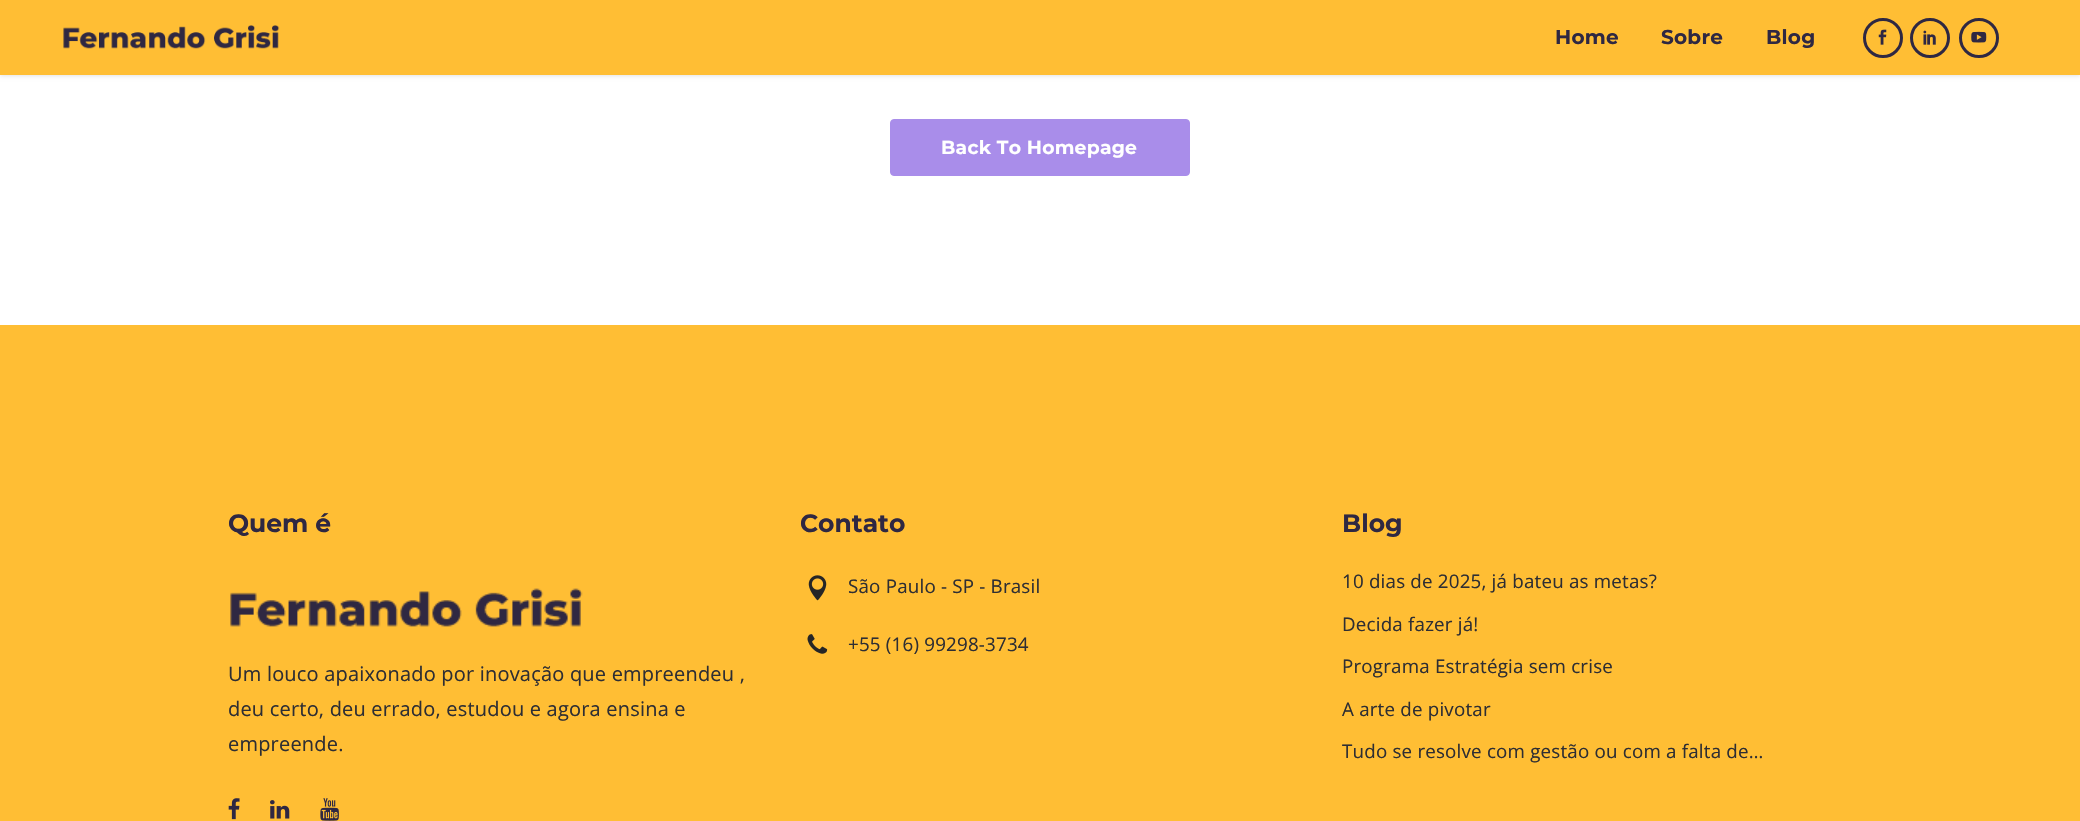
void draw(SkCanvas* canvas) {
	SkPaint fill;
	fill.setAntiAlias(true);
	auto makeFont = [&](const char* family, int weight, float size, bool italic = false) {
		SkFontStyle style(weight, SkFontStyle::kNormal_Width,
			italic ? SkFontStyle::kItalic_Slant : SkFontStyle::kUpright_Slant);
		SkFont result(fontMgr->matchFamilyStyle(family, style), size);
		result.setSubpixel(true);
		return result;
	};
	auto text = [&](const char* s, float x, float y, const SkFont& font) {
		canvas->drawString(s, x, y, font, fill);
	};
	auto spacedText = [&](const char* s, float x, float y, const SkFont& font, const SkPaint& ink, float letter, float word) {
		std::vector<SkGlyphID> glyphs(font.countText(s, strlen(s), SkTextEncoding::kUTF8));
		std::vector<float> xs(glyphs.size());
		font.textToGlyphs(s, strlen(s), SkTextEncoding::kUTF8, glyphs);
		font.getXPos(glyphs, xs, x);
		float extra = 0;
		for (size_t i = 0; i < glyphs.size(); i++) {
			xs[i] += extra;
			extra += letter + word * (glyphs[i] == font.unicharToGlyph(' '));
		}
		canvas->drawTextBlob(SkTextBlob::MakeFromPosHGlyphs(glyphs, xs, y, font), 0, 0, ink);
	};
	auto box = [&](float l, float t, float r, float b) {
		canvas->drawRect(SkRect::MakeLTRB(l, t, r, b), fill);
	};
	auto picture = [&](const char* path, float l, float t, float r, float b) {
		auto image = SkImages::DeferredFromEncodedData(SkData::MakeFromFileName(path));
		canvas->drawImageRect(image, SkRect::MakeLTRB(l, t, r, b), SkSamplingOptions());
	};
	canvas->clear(0xFFFFFFFF);
	fill.setColor(0x1C000000);
	fill.setMaskFilter(SkMaskFilter::MakeBlur(kNormal_SkBlurStyle, 2));
	canvas->drawRect(SkRect::MakeLTRB(0, 1, 2080, 76), fill);
	fill.setMaskFilter(nullptr);
	fill.setColor(0xFFFFBE34);
	box(0, 0, 2080, 75);
	picture("image0.png", 63, 25, 280, 49);
	fill.setStyle(SkPaint::kStroke_Style);
	fill.setStrokeWidth(3);
	fill.setColor(0xFF2F2842);
	canvas->drawCircle(1883, 38, 18.5f, fill);
	picture("image1.png", 1878, 29, 1887, 45);
	canvas->drawCircle(1930, 38, 18.5f, fill);
	picture("image2.png", 1923, 30, 1936, 45);
	canvas->drawCircle(1979, 38, 18.5f, fill);
	picture("image3.png", 1971, 31, 1987, 43);
	fill.setStyle(SkPaint::kFill_Style);
	fill.setColor(0xFFA98DEA);
	canvas->drawRoundRect(SkRect::MakeLTRB(890.5f, 119.5f, 1189.5f, 175.5f), 3.5f, 3.5f, fill);
	fill.setStyle(SkPaint::kStroke_Style);
	fill.setStrokeWidth(1);
	canvas->drawRoundRect(SkRect::MakeLTRB(890.5f, 119.5f, 1189.5f, 175.5f), 3.5f, 3.5f, fill);
	fill.setStyle(SkPaint::kFill_Style);
	fill.setColor(0xFFFFBE34);
	box(0, 325, 2080, 821);
	picture("image4.png", 230, 588, 583, 627);
	picture("image5.png", 228, 798, 240, 820);
	picture("image6.png", 270, 800, 290, 819);
	picture("image7.png", 320, 798, 339, 821);
	picture("image8.png", 808, 575, 827, 601);
	picture("image9.png", 807, 634, 828, 654);
	auto font1 = makeFont("Montserrat", 700, 20);
	fill.setColor(0xFF2F2842);
	spacedText("Home", 1555, 44, font1, fill, 0.25f, 0);
	spacedText("Sobre", 1661, 44, font1, fill, 0.25f, 0);
	spacedText("Blog", 1766, 44, font1, fill, 0.25f, 0);
	auto font2 = makeFont("Montserrat", 700, 18.75f);
	fill.setColor(0xFFFFFFFF);
	spacedText("Back To Homepage", 941, 154, font2, fill, 0.25f, 0);
	auto font3 = makeFont("Montserrat", 700, 25);
	fill.setColor(0xFF2F2842);
	text("Quem é", 228, 532, font3);
	auto font4 = makeFont("Open Sans", 400, 20);
	fill.setColor(0xFF2E2E33);
	spacedText("Um louco apaixonado por inovação que empreendeu ,", 228, 681, font4, fill, 0.2f, 0);
	spacedText("deu certo, deu errado, estudou e agora ensina e", 228, 716, font4, fill, 0.2f, 0);
	spacedText("empreende.", 228, 751, font4, fill, 0.2f, 0);
	fill.setColor(0xFF2F2842);
	text("Contato", 800, 532, font3);
	auto font5 = makeFont("Open Sans", 400, 18.75f);
	fill.setColor(0xFF2E2E33);
	spacedText("São Paulo - SP - Brasil", 848, 593, font5, fill, 0.2f, 0);
	spacedText("+55 (16) 99298-3734", 848, 651, font5, fill, 0.2f, 0);
	fill.setColor(0xFF2F2842);
	text("Blog", 1342, 532, font3);
	fill.setColor(0xFF2E2E33);
	spacedText("10 dias de 2025, já bateu as metas?", 1342, 588, font5, fill, 0.2f, 0);
	spacedText("Decida fazer já!", 1342, 631, font5, fill, 0.2f, 0);
	spacedText("Programa Estratégia sem crise", 1342, 673, font5, fill, 0.2f, 0);
	spacedText("A arte de pivotar", 1342, 716, font5, fill, 0.2f, 0);
	spacedText("Tudo se resolve com gestão ou com a falta de…", 1342, 758, font5, fill, 0.2f, 0);
}
